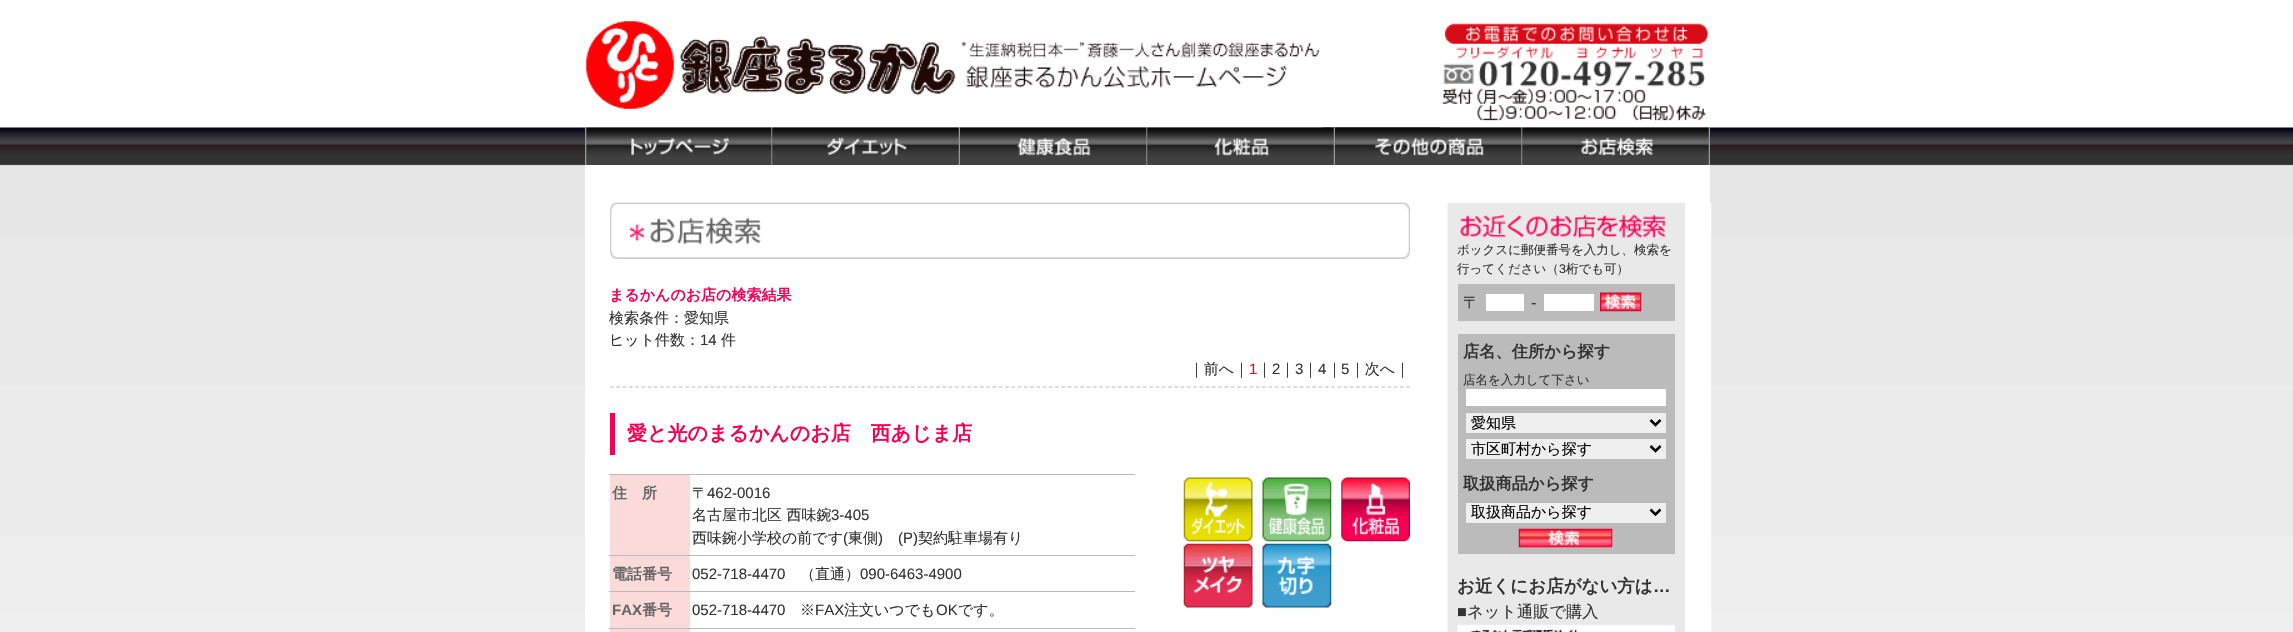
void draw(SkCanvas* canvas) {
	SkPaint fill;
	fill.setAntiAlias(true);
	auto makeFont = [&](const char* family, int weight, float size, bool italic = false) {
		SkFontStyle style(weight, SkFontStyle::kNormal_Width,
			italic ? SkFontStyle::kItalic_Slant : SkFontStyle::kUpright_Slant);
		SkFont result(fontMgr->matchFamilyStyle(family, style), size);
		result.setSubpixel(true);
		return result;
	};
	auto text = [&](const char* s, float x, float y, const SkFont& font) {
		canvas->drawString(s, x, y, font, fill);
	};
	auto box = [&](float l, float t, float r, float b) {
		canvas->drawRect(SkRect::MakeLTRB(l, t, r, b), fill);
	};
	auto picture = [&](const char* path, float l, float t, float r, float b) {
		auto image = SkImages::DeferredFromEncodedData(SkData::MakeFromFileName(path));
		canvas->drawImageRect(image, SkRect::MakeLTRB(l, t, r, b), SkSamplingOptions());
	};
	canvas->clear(0xFFFFFFFF);
	picture("image0.png", 0, 127, 2293, 632);
	picture("image1.png", 585, 21, 1323, 128);
	picture("image2.png", 1440, 23, 1710, 128);
	picture("image3.png", 585, 127, 773, 165);
	picture("image4.png", 772, 127, 960, 165);
	picture("image5.png", 960, 127, 1148, 165);
	picture("image6.png", 1147, 127, 1335, 165);
	picture("image7.png", 1335, 127, 1523, 165);
	picture("image8.png", 1522, 127, 1710, 165);
	fill.setColor(0xFFFFFFFF);
	box(585, 165, 1710, 203);
	picture("image9.png", 585, 202, 1712, 632);
	picture("image10.png", 610, 202, 1410, 259);
	fill.setColor(0x80FFFFFF);
	box(614, 202, 1685, 203);
	fill.setStyle(SkPaint::kStroke_Style);
	fill.setStrokeWidth(1.2f);
	fill.setColor(0xFFBBBBBB);
	fill.setPathEffect(SkDashPathEffect::Make({{3.75f, 2.52f}}, 0));
	canvas->drawPath(SkPathBuilder().moveTo(610, 387).lineTo(1410, 387).detach(), fill);
	fill.setPathEffect(nullptr);
	fill.setStyle(SkPaint::kFill_Style);
	fill.setColor(0xFFF70054);
	box(610, 413, 615, 455);
	fill.setColor(0xFFFADBDA);
	box(610, 475, 690, 555);
	fill.setColor(0xFFBBBBBB);
	box(609, 474, 1135, 475);
	fill.setColor(0xFFFADBDA);
	box(610, 556, 690, 628);
	fill.setColor(0xFFBBBBBB);
	box(609, 555, 1135, 556);
	box(609, 591, 1135, 592);
	box(609, 628, 1135, 629);
	fill.setColor(0xFFFADBDA);
	box(610, 629, 690, 632);
	picture("image11.png", 1183, 477, 1253, 542);
	picture("image12.png", 1262, 477, 1332, 542);
	picture("image13.png", 1341, 477, 1410, 542);
	picture("image14.png", 1183, 543, 1253, 608);
	picture("image15.png", 1262, 543, 1332, 608);
	picture("image16.png", 1459, 214, 1666, 238);
	fill.setColor(0xFFBBBBBB);
	box(1458, 284, 1675, 321);
	fill.setColor(0xFFFFFFFF);
	box(1486, 294, 1524, 311);
	box(1544, 294, 1594, 311);
	picture("image17.png", 1600, 292, 1642, 312);
	fill.setColor(0xFFBBBBBB);
	box(1458, 334, 1675, 554);
	fill.setColor(0xFFFFFFFF);
	box(1466, 389, 1666, 406);
	fill.setColor(0xFFEFEFEF);
	box(1466, 413, 1666, 433);
	fill.setStyle(SkPaint::kStroke_Style);
	fill.setStrokeWidth(2.5f);
	fill.setColor(0xFF000000);
	canvas->drawPath(SkPathBuilder().moveTo(1650.5f, 420).lineTo(1655.5f, 425).lineTo(1660.5f, 420).detach(), fill);
	fill.setStyle(SkPaint::kFill_Style);
	fill.setColor(0xFFEFEFEF);
	box(1466, 439, 1666, 459);
	fill.setStyle(SkPaint::kStroke_Style);
	fill.setColor(0xFF000000);
	canvas->drawPath(SkPathBuilder().moveTo(1650.5f, 446).lineTo(1655.5f, 451).lineTo(1660.5f, 446).detach(), fill);
	fill.setStyle(SkPaint::kFill_Style);
	fill.setColor(0xFFEFEFEF);
	box(1466, 503, 1666, 523);
	fill.setStyle(SkPaint::kStroke_Style);
	fill.setColor(0xFF000000);
	canvas->drawPath(SkPathBuilder().moveTo(1650.5f, 509.5f).lineTo(1655.5f, 514.5f).lineTo(1660.5f, 509.5f).detach(), fill);
	fill.setStyle(SkPaint::kFill_Style);
	fill.setColor(0xFFEFEFEF);
	box(1519, 529, 1613, 548);
	picture("image18.png", 1518, 528, 1613, 548);
	picture("image19.png", 1457, 624, 1675, 632);
	auto font1 = makeFont("WenQuanYi Zen Hei", 700, 15);
	fill.setColor(0xFFF70054);
	text("まるかんのお店の検索結果", 609, 300, font1);
	auto font2 = makeFont("WenQuanYi Zen Hei", 500, 15);
	fill.setColor(0xFF333333);
	text("検索条件：愛知県", 609, 323, font2);
	text("ヒット件数：", 609, 345, font2);
	auto font3 = makeFont("Liberation Sans", 400, 15);
	text("14", 700, 345, font3);
	text("件", 721, 345, font2);
	text("｜前へ｜", 1189, 374, font2);
	fill.setColor(0xFFFF0000);
	text("1", 1249, 374, font3);
	fill.setColor(0xFF333333);
	text("｜", 1257, 374, font2);
	text("2", 1272, 374, font3);
	text("｜", 1280, 374, font2);
	text("3", 1295, 374, font3);
	text("｜", 1303, 374, font2);
	text("4", 1318, 374, font3);
	text("｜", 1327, 374, font2);
	text("5", 1341, 374, font3);
	text("｜次へ｜", 1350, 374, font2);
	auto font4 = makeFont("WenQuanYi Zen Hei", 700, 20);
	fill.setColor(0xFFF70054);
	text("愛と光のまるかんのお店　西あじま店", 627, 440, font4);
	fill.setColor(0xFF666666);
	text("住　所", 612, 498, font1);
	fill.setColor(0xFF333333);
	text("〒", 692, 498, font2);
	text("462-0016", 707, 498, font3);
	text("名古屋市北区 西味鋺", 692, 520, font2);
	text("3-405", 831, 520, font3);
	text("西味鋺小学校の前です", 692, 543, font2);
	text("(", 843, 543, font3);
	text("東側", 848, 543, font2);
	text(")", 878, 543, font3);
	text("(P)", 898, 543, font3);
	text("契約駐車場有り", 918, 543, font2);
	fill.setColor(0xFF666666);
	text("電話番号", 612, 579, font1);
	fill.setColor(0xFF333333);
	text("052-718-4470", 692, 579, font3);
	text("（直通）", 800, 579, font2);
	text("090-6463-4900", 860, 579, font3);
	auto font5 = makeFont("Liberation Sans", 700, 15);
	fill.setColor(0xFF666666);
	text("FAX", 612, 615, font5);
	text("番号", 642, 615, font1);
	fill.setColor(0xFF333333);
	text("052-718-4470", 692, 615, font3);
	text("※", 800, 615, font2);
	text("FAX", 815, 615, font3);
	text("注文いつでも", 844, 615, font2);
	text("OK", 936, 615, font3);
	text("です。", 958, 615, font2);
	auto font6 = makeFont("WenQuanYi Zen Hei", 500, 12.5f);
	text("ボックスに郵便番号を入力し、検索を", 1457, 254, font6);
	text("行ってください（", 1457, 273, font6);
	auto font7 = makeFont("Liberation Sans", 400, 12.5f);
	text("3", 1559, 273, font7);
	text("桁でも可）", 1566, 273, font6);
	auto font8 = makeFont("WenQuanYi Zen Hei", 500, 16.25f);
	text("〒", 1463, 308, font8);
	auto font9 = makeFont("Liberation Sans", 400, 16.25f);
	text("-", 1531, 308, font9);
	auto font10 = makeFont("WenQuanYi Zen Hei", 700, 16.25f);
	text("店名、住所から探す", 1463, 357, font10);
	text("店名を入力して下さい", 1463, 384, font6);
	fill.setColor(0xFF000000);
	text("愛知県", 1471, 428, font2);
	text("市区町村から探す", 1471, 454, font2);
	fill.setColor(0xFF333333);
	text("取扱商品から探す", 1463, 489, font10);
	fill.setColor(0xFF000000);
	text("取扱商品から探す", 1471, 517, font2);
	auto font11 = makeFont("WenQuanYi Zen Hei", 700, 17.5f);
	fill.setColor(0xFF333333);
	text("お近くにお店がない方は", 1457, 592, font11);
	auto font12 = makeFont("Liberation Sans", 700, 17.5f);
	text("…", 1653, 592, font12);
	text("■", 1457, 617, font9);
	text("ネット通販で購入", 1467, 617, font8);
}
